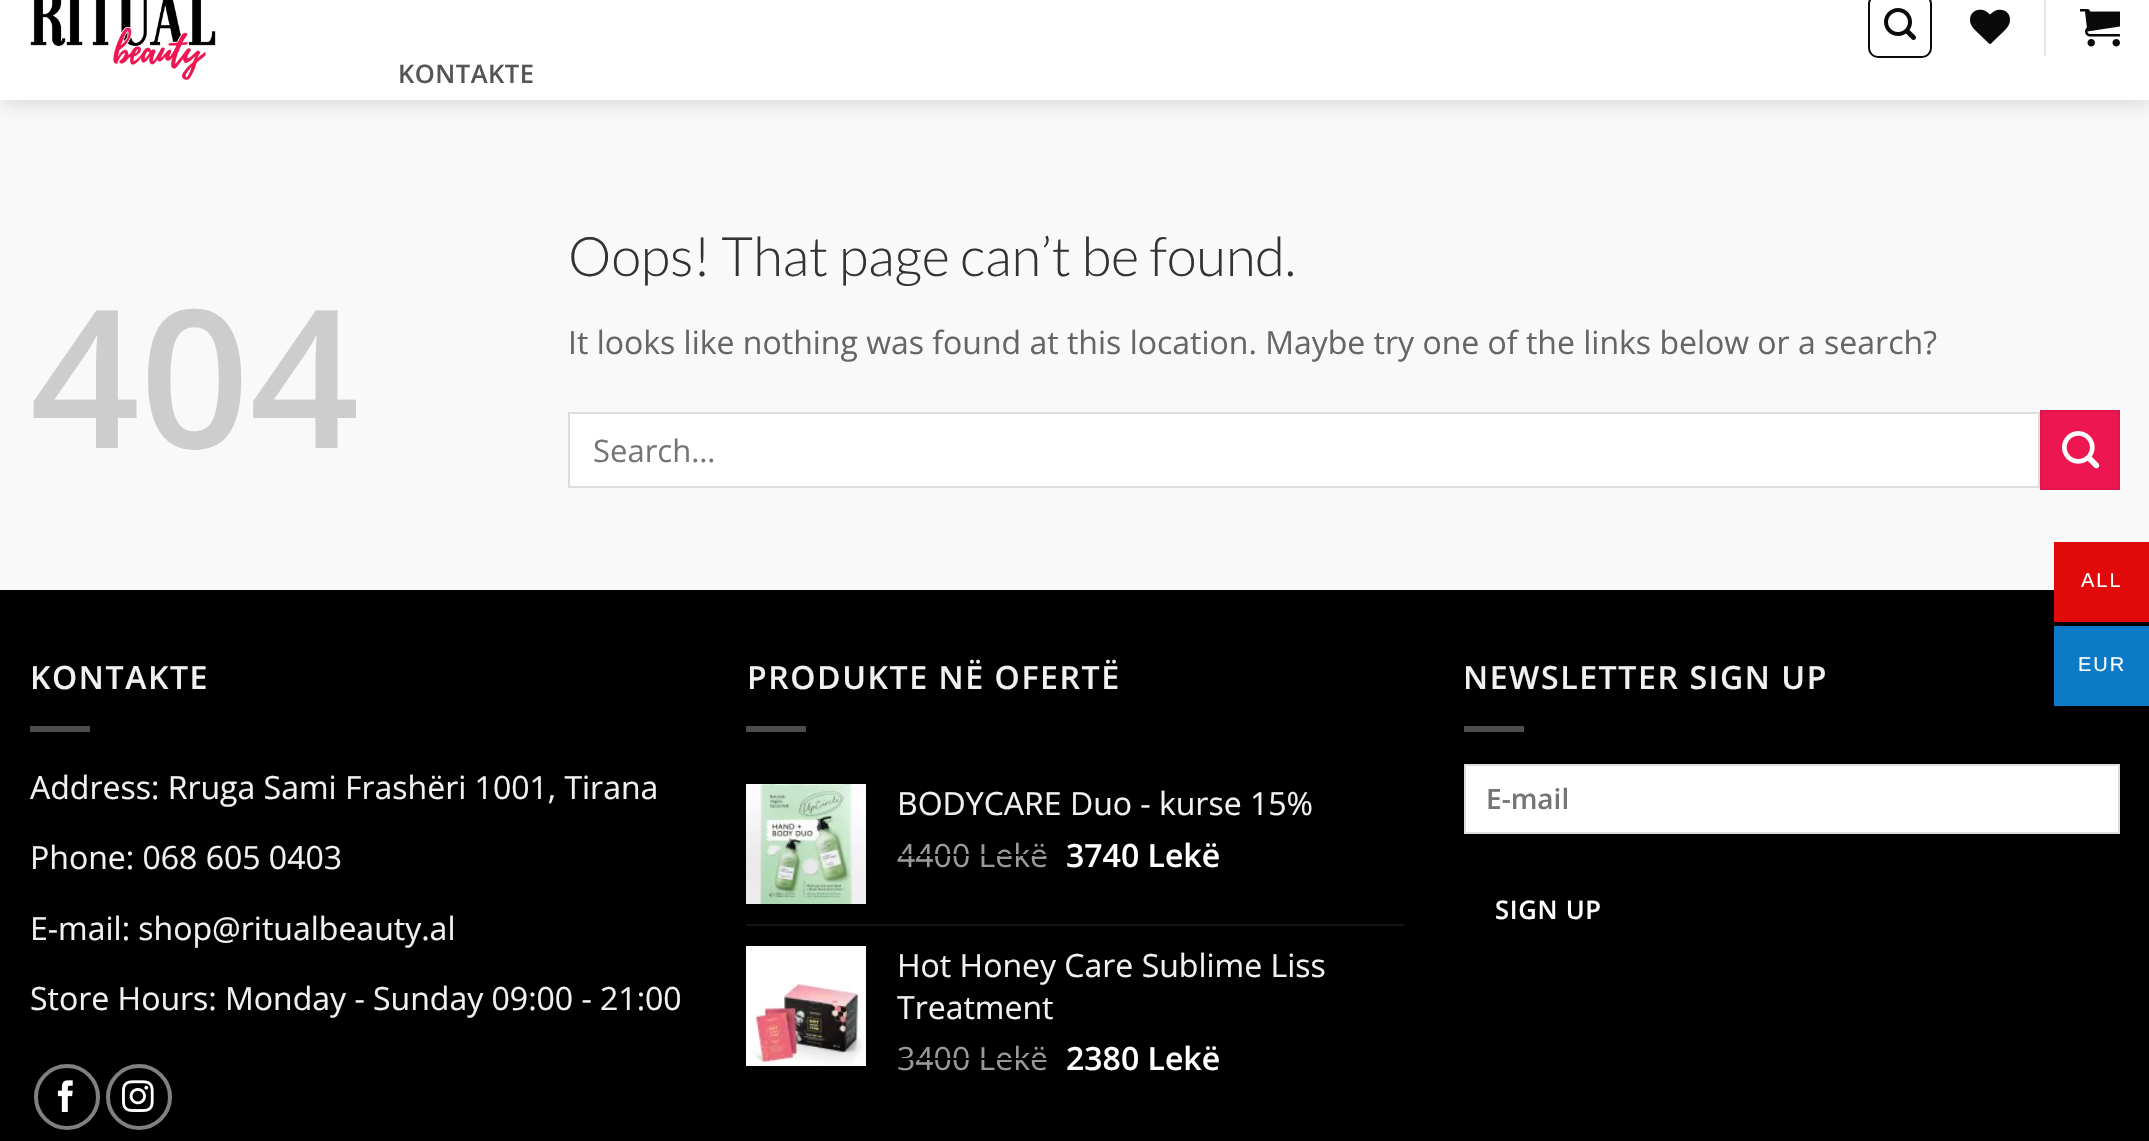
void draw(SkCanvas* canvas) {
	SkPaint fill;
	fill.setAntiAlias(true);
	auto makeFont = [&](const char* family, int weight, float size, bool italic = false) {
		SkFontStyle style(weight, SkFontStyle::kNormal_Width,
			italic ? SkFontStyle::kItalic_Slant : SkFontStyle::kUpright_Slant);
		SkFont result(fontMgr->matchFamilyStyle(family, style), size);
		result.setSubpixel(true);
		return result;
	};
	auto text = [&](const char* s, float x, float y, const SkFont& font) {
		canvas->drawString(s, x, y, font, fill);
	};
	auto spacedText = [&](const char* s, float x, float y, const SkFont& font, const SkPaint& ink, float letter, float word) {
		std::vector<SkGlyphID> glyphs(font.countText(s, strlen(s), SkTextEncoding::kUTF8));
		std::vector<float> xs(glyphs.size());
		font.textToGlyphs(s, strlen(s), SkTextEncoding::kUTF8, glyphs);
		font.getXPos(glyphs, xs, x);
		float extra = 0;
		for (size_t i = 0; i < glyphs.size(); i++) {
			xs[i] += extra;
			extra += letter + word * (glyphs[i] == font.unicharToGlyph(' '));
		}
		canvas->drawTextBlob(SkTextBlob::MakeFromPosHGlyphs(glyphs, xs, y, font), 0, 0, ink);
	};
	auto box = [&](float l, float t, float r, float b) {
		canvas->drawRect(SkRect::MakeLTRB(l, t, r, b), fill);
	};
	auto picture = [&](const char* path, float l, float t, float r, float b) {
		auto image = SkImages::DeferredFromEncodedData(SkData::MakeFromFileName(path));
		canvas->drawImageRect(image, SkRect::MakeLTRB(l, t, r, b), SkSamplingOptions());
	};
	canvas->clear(0xFFF9F9F9);
	fill.setColor(0x26000000);
	fill.setMaskFilter(SkMaskFilter::MakeBlur(kNormal_SkBlurStyle, 10));
	canvas->drawRect(SkRect::MakeLTRB(2, -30, 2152, 102), fill);
	fill.setMaskFilter(nullptr);
	fill.setColor(0xFFFFFFFF);
	box(0, 0, 2149, 100);
	picture("image0.png", 30, 0, 216, 80);
	fill.setStyle(SkPaint::kStroke_Style);
	fill.setStrokeWidth(2);
	fill.setColor(0xFF0A0A0A);
	canvas->drawRoundRect(SkRect::MakeLTRB(1869, -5, 1931, 57), 9, 9, fill);
	picture("image1.png", 1884, 8, 1916, 40);
	picture("image2.png", 1970, 9, 2010, 44);
	fill.setStyle(SkPaint::kFill_Style);
	fill.setColor(0xFFE6E6E6);
	box(2044, 0, 2046, 56);
	picture("image3.png", 2080, 9, 2120, 47);
	fill.setColor(0xFFFFFFFF);
	canvas->drawRect(SkRect::MakeLTRB(569, 413, 2039, 487), fill);
	fill.setStyle(SkPaint::kStroke_Style);
	fill.setColor(0xFFDDDDDD);
	canvas->drawRect(SkRect::MakeLTRB(569, 413, 2039, 487), fill);
	fill.setStyle(SkPaint::kFill_Style);
	fill.setColor(0xFFED1651);
	canvas->drawRect(SkRect::MakeLTRB(2041, 411, 2119, 489), fill);
	fill.setStyle(SkPaint::kStroke_Style);
	fill.setColor(0xFFE1154D);
	canvas->drawRect(SkRect::MakeLTRB(2041, 411, 2119, 489), fill);
	picture("image4.png", 2062, 431, 2100, 469);
	fill.setStyle(SkPaint::kFill_Style);
	fill.setColor(0xFF000000);
	box(0, 590, 2149, 1141);
	fill.setColor(0xFF4D4D4D);
	box(30, 726, 90, 732);
	fill.setStyle(SkPaint::kStroke_Style);
	fill.setStrokeWidth(4);
	fill.setColor(0xFF808080);
	canvas->drawCircle(67, 1097, 31, fill);
	picture("image5.png", 57, 1080, 73, 1112);
	canvas->drawCircle(139, 1097, 31, fill);
	picture("image6.png", 122, 1080, 154, 1112);
	fill.setStyle(SkPaint::kFill_Style);
	fill.setColor(0xFF4D4D4D);
	box(746, 726, 806, 732);
	picture("image7.png", 746, 784, 866, 904);
	fill.setColor(0xFF141414);
	box(746, 924, 1404, 926);
	picture("image8.png", 746, 946, 866, 1066);
	fill.setColor(0xFF4D4D4D);
	box(1464, 726, 1524, 732);
	fill.setColor(0xFFFFFFFF);
	canvas->drawRect(SkRect::MakeLTRB(1465, 765, 2119, 833), fill);
	fill.setStyle(SkPaint::kStroke_Style);
	fill.setStrokeWidth(2);
	fill.setColor(0xFFDDDDDD);
	canvas->drawRect(SkRect::MakeLTRB(1465, 765, 2119, 833), fill);
	fill.setStyle(SkPaint::kFill_Style);
	fill.setColor(0xFFE00A0A);
	box(2054, 542, 2149, 622);
	fill.setColor(0xFF0D7AC8);
	box(2054, 626, 2149, 706);
	auto font1 = makeFont("Open Sans", 600, 25.5f);
	fill.setColor(0xFF555555);
	spacedText("KONTAKTE", 398, 83, font1, fill, 0.5f, 0);
	auto font2 = makeFont("Open Sans", 600, 192);
	fill.setColor(0xFFCDCDCD);
	text("404", 30, 448, font2);
	auto font3 = makeFont("Lato", 300, 54.4f);
	fill.setColor(0xFF333333);
	text("Oops! That page can’t be found.", 568, 276, font3);
	auto font4 = makeFont("Open Sans", 400, 32);
	fill.setColor(0xFF666666);
	text("It looks like nothing was found at this location. Maybe try one of the links below or a search?", 568, 354, font4);
	auto font5 = makeFont("Open Sans", 400, 31);
	fill.setColor(0xFF757575);
	text("Search…", 593, 462, font5);
	auto font6 = makeFont("Open Sans", 600, 32);
	fill.setColor(0xFFF1F1F1);
	spacedText("KONTAKTE", 30, 689, font6, fill, 1.6f, 0);
	text("Address: Rruga Sami Frashëri 1001, Tirana", 30, 799, font4);
	text("Phone: 068 605 0403", 30, 869, font4);
	text("E-mail: shop@ritualbeauty.al", 30, 940, font4);
	text("Store Hours: Monday - Sunday 09:00 - 21:00", 30, 1010, font4);
	spacedText("PRODUKTE NË OFERTË", 747, 689, font6, fill, 1.6f, 0);
	text("BODYCARE Duo - kurse 15%", 897, 815, font4);
	fill.setColor(0xFF999999);
	text("4400 Lekë", 897, 867, font4);
	fill.setColor(0xFF000000);
	box(896, 854, 969, 856);
	box(978, 854, 1048, 856);
	fill.setColor(0xFFFFFFFF);
	text("3740 Lekë", 1066, 867, font6);
	fill.setColor(0xFFF1F1F1);
	text("Hot Honey Care Sublime Liss", 897, 977, font4);
	text("Treatment", 897, 1019, font4);
	fill.setColor(0xFF999999);
	text("3400 Lekë", 897, 1070, font4);
	fill.setColor(0xFF000000);
	box(896, 1058, 969, 1060);
	box(978, 1058, 1048, 1060);
	fill.setColor(0xFFFFFFFF);
	text("2380 Lekë", 1066, 1070, font6);
	fill.setColor(0xFFF1F1F1);
	spacedText("NEWSLETTER SIGN UP", 1463, 689, font6, fill, 1.6f, 0);
	auto font7 = makeFont("Open Sans", 600, 28);
	fill.setColor(0xFF757575);
	text("E-mail", 1486, 809, font7);
	fill.setColor(0xFFFFFFFF);
	spacedText("SIGN UP", 1495, 919, font1, fill, 0.75f, 0);
	auto font8 = makeFont("Liberation Sans", 400, 20);
	spacedText("ALL", 2081, 587, font8, fill, 2, 0);
	spacedText("EUR", 2078, 671, font8, fill, 2, 0);
}
